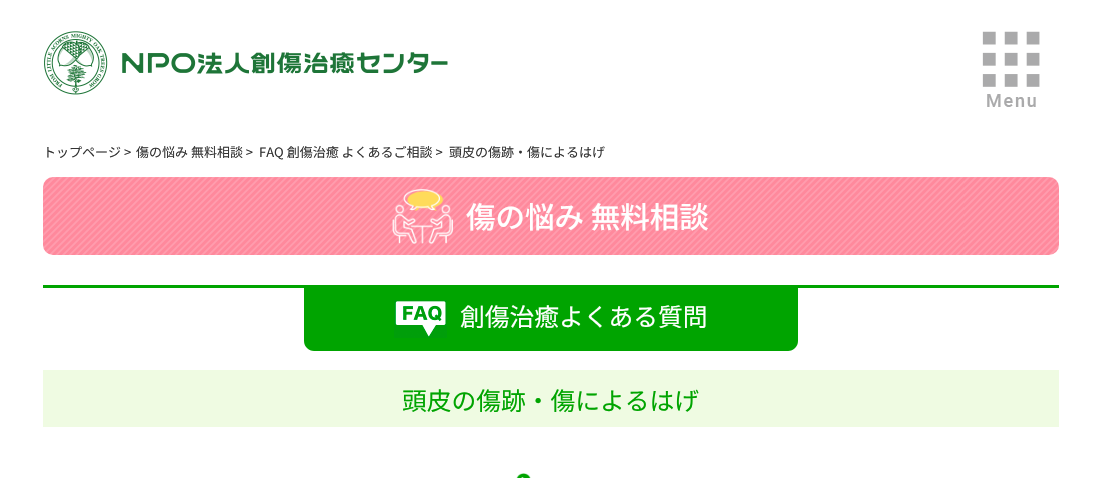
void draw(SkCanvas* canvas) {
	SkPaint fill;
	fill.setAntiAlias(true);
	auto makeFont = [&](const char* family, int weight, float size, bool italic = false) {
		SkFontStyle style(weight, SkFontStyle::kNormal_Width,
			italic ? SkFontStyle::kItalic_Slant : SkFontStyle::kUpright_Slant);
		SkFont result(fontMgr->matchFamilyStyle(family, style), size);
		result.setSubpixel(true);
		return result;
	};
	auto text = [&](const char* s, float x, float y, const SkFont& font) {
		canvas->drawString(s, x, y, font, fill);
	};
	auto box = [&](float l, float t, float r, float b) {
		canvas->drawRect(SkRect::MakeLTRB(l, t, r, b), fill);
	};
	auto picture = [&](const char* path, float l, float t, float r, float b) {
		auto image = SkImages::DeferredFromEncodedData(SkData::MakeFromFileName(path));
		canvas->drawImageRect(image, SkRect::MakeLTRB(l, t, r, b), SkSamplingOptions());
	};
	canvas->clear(0xFFFFFFFF);
	picture("image0.png", 44, 31, 448, 95);
	picture("image1.png", 982, 31, 1040, 107);
	picture("image2.png", 43, 177, 1059, 255);
	picture("image3.png", 392, 189, 453, 244);
	fill.setColor(0xFF00A400);
	box(43, 285, 1059, 288);
	canvas->drawPath(SkPathBuilder().moveTo(304, 288).lineTo(798, 288).lineTo(798, 341).cubicTo(798, 346.5f, 793.5f, 351, 788, 351).lineTo(314, 351).cubicTo(308.5f, 351, 304, 346.5f, 304, 341).close().detach(), fill);
	picture("image4.png", 394, 300, 447, 338);
	fill.setColor(0xFFEFFBE2);
	box(43, 370, 1059, 427);
	picture("image5.png", 516, 473, 531, 478);
	auto font1 = makeFont("Noto Sans JP", 400, 13);
	fill.setColor(0xFF333333);
	text("トップページ >", 43, 157, font1);
	text("傷の悩み 無料相談 >", 136, 157, font1);
	text("FAQ 創傷治癒 よくあるご相談 >", 259, 157, font1);
	text("頭皮の傷跡・傷によるはげ", 449, 157, font1);
	auto font2 = makeFont("Noto Sans JP", 500, 29.5f);
	fill.setColor(0xFFFFFFFF);
	text("傷の悩み 無料相談", 466, 228, font2);
	auto font3 = makeFont("Noto Sans JP", 400, 24.75f);
	text("創傷治癒よくある質問", 460, 326, font3);
	fill.setColor(0xFF00A400);
	text("頭皮の傷跡・傷によるはげ", 402, 410, font3);
}
